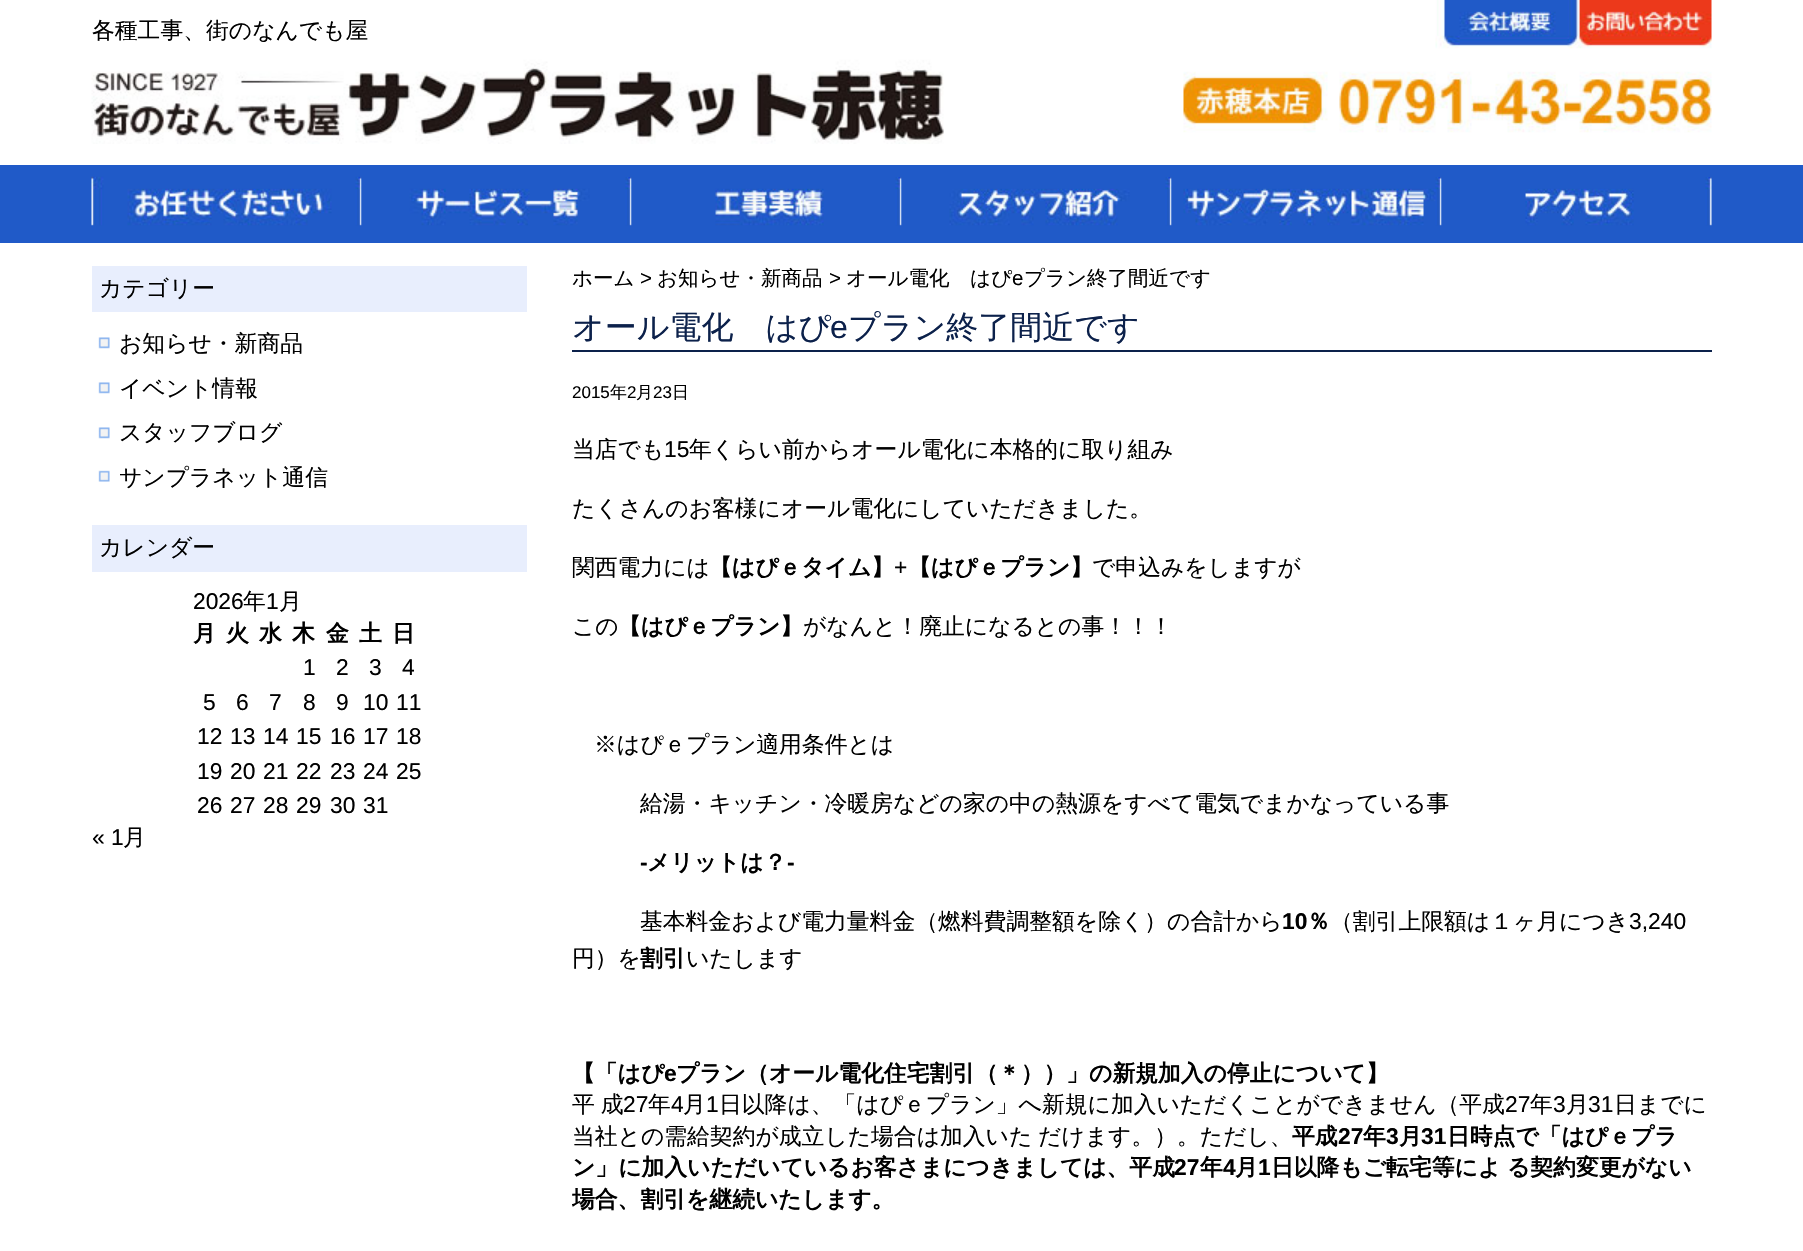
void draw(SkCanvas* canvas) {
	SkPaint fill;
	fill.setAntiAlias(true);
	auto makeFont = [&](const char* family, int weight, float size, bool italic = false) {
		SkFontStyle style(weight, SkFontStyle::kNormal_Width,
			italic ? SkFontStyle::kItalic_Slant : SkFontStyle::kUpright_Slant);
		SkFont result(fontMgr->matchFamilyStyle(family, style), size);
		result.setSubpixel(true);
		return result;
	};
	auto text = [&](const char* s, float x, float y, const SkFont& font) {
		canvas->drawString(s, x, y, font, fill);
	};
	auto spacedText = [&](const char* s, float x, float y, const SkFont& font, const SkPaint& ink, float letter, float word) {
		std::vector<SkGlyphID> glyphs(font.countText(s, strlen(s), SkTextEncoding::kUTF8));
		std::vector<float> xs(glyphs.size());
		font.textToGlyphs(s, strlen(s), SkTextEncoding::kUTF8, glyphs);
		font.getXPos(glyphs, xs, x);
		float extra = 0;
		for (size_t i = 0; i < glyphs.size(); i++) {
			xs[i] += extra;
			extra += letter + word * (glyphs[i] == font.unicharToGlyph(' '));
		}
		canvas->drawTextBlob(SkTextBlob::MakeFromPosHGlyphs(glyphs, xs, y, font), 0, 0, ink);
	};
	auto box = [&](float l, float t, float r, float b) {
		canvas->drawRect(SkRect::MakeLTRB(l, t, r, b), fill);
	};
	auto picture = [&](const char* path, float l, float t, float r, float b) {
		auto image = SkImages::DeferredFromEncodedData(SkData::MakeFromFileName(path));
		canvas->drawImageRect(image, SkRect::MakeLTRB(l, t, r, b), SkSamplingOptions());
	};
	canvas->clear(0xFFFFFFFF);
	picture("image0.png", 91, 0, 1712, 144);
	fill.setColor(0xFF205AC8);
	box(0, 165, 1803, 243);
	picture("image1.png", 91, 176, 362, 226);
	picture("image2.png", 361, 177, 632, 226);
	picture("image3.png", 631, 177, 902, 226);
	picture("image4.png", 901, 177, 1172, 226);
	picture("image5.png", 1171, 177, 1442, 226);
	picture("image6.png", 1441, 177, 1712, 226);
	fill.setColor(0xFFE8EEFD);
	box(92, 266, 527, 312);
	picture("image7.png", 98, 337, 110, 349);
	picture("image7.png", 98, 382, 110, 394);
	picture("image7.png", 98, 427, 110, 439);
	picture("image8.png", 98, 470, 110, 482);
	box(92, 525, 527, 572);
	fill.setColor(0xFF0C214B);
	box(572, 350, 1712, 352);
	auto font1 = makeFont("WenQuanYi Zen Hei", 500, 22.8f);
	fill.setColor(0xFF000000);
	text("各種工事、街のなんでも屋", 92, 38, font1);
	text("カテゴリー", 99, 296, font1);
	text("お知らせ・新商品", 119, 351, font1);
	text("イベント情報", 119, 396, font1);
	text("スタッフブログ", 119, 440, font1);
	text("サンプラネット通信", 119, 485, font1);
	text("カレンダー", 99, 555, font1);
	auto font2 = makeFont("Liberation Sans", 400, 22.8f);
	text("2026", 193, 609, font2);
	text("年", 243, 609, font1);
	text("1", 266, 609, font2);
	text("月", 279, 609, font1);
	auto font3 = makeFont("WenQuanYi Zen Hei", 700, 22.8f);
	text("月", 193, 641, font3);
	text("火", 226, 641, font3);
	text("水", 259, 641, font3);
	text("木", 292, 641, font3);
	text("金", 326, 641, font3);
	text("土", 359, 641, font3);
	text("日", 392, 641, font3);
	text("1", 303, 675, font2);
	text("2", 336, 675, font2);
	text("3", 369, 675, font2);
	text("4", 402, 675, font2);
	text("5", 203, 710, font2);
	text("6", 236, 710, font2);
	text("7", 269, 710, font2);
	text("8", 303, 710, font2);
	text("9", 336, 710, font2);
	text("10", 363, 710, font2);
	text("11", 396, 710, font2);
	text("12", 197, 744, font2);
	text("13", 230, 744, font2);
	text("14", 263, 744, font2);
	text("15", 296, 744, font2);
	text("16", 330, 744, font2);
	text("17", 363, 744, font2);
	text("18", 396, 744, font2);
	text("19", 197, 779, font2);
	text("20", 230, 779, font2);
	text("21", 263, 779, font2);
	text("22", 296, 779, font2);
	text("23", 330, 779, font2);
	text("24", 363, 779, font2);
	text("25", 396, 779, font2);
	text("26", 197, 813, font2);
	text("27", 230, 813, font2);
	text("28", 263, 813, font2);
	text("29", 296, 813, font2);
	text("30", 330, 813, font2);
	text("31", 363, 813, font2);
	text("« 1", 92, 845, font2);
	text("月", 123, 845, font1);
	auto font4 = makeFont("WenQuanYi Zen Hei", 500, 20.5f);
	text("ホーム", 572, 285, font4);
	auto font5 = makeFont("Liberation Sans", 400, 20.5f);
	text(">", 640, 285, font5);
	text("お知らせ・新商品", 657, 285, font4);
	text(">", 829, 285, font5);
	text("オール電化　はぴ", 846, 285, font4);
	text("e", 1012, 285, font5);
	text("プラン終了間近です", 1024, 285, font4);
	auto font6 = makeFont("WenQuanYi Zen Hei", 500, 32);
	fill.setColor(0xFF0C214B);
	text("オール電化　はぴ", 572, 338, font6);
	auto font7 = makeFont("Liberation Sans", 400, 32);
	text("e", 830, 338, font7);
	text("プラン終了間近です", 848, 338, font6);
	auto font8 = makeFont("Liberation Sans", 400, 17);
	fill.setColor(0xFF000000);
	text("2015", 572, 398, font8);
	auto font9 = makeFont("WenQuanYi Zen Hei", 500, 17);
	text("年", 610, 398, font9);
	text("2", 627, 398, font8);
	text("月", 636, 398, font9);
	text("23", 653, 398, font8);
	text("日", 672, 398, font9);
	text("当店でも", 572, 457, font1);
	text("15", 664, 457, font2);
	text("年くらい前からオール電化に本格的に取り組み", 689, 457, font1);
	text("たくさんのお客様にオール電化にしていただきました。", 572, 516, font1);
	text("関西電力には", 572, 575, font1);
	text("【はぴｅタイム】", 709, 575, font3);
	text("+", 894, 575, font2);
	text("【はぴｅプラン】", 908, 575, font3);
	text("で申込みをしますが", 1092, 575, font1);
	text("この", 572, 634, font1);
	text("【はぴｅプラン】", 618, 634, font3);
	text("がなんと！廃止になるとの事！！！", 803, 634, font1);
	text("※はぴｅプラン適用条件とは", 594, 752, font1);
	text("給湯・キッチン・冷暖房などの家の中の熱源をすべて電気でまかなっている事", 640, 811, font1);
	auto font10 = makeFont("Liberation Sans", 700, 22.8f);
	text("-", 640, 870, font10);
	text("メリットは？", 647, 870, font3);
	text("-", 787, 870, font10);
	text("基本料金および電力量料金（燃料費調整額を除く）の合計から", 640, 929, font1);
	text("10", 1282, 929, font10);
	text("％", 1307, 929, font3);
	text("（割引上限額は１ヶ月につき", 1330, 929, font1);
	text("3,240", 1629, 929, font2);
	text("円）を", 572, 966, font1);
	text("割引", 640, 966, font3);
	text("いたします", 686, 966, font1);
	text("【「はぴ", 572, 1081, font3);
	text("e", 664, 1081, font10);
	text("プラン（オール電化住宅割引（＊））」の新規加入の停止について】", 676, 1081, font3);
	spacedText("平 成", 572, 1112, font1, fill, 0, -1);
	text("27", 623, 1112, font2);
	text("年", 648, 1112, font1);
	text("4", 671, 1112, font2);
	text("月", 683, 1112, font1);
	text("1", 706, 1112, font2);
	text("日以降は、「はぴｅプラン」へ新規に加入いただくことができません（平成", 719, 1112, font1);
	text("27", 1505, 1112, font2);
	text("年", 1530, 1112, font1);
	text("3", 1553, 1112, font2);
	text("月", 1566, 1112, font1);
	text("31", 1588, 1112, font2);
	text("日までに", 1614, 1112, font1);
	spacedText("当社との需給契約が成立した場合は加入いた だけます。）。ただし、", 572, 1144, font1, fill, 0, -1);
	text("平成", 1292, 1144, font3);
	text("27", 1338, 1144, font10);
	text("年", 1363, 1144, font3);
	text("3", 1386, 1144, font10);
	text("月", 1399, 1144, font3);
	text("31", 1421, 1144, font10);
	text("日時点で「はぴｅプラ", 1447, 1144, font3);
	text("ン」に加入いただいているお客さまにつきましては、平成", 572, 1175, font3);
	text("27", 1174, 1175, font10);
	text("年", 1200, 1175, font3);
	text("4", 1223, 1175, font10);
	text("月", 1235, 1175, font3);
	text("1", 1258, 1175, font10);
	spacedText("日以降もご転宅等によ る契約変更がない", 1271, 1175, font3, fill, 0, -1);
	canvas->save();
	canvas->clipRect(SkRect::MakeLTRB(572, 374, 1712, 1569));
	text("場合、割引を継続いたします。", 572, 1207, font3);
	canvas->restore();
}
